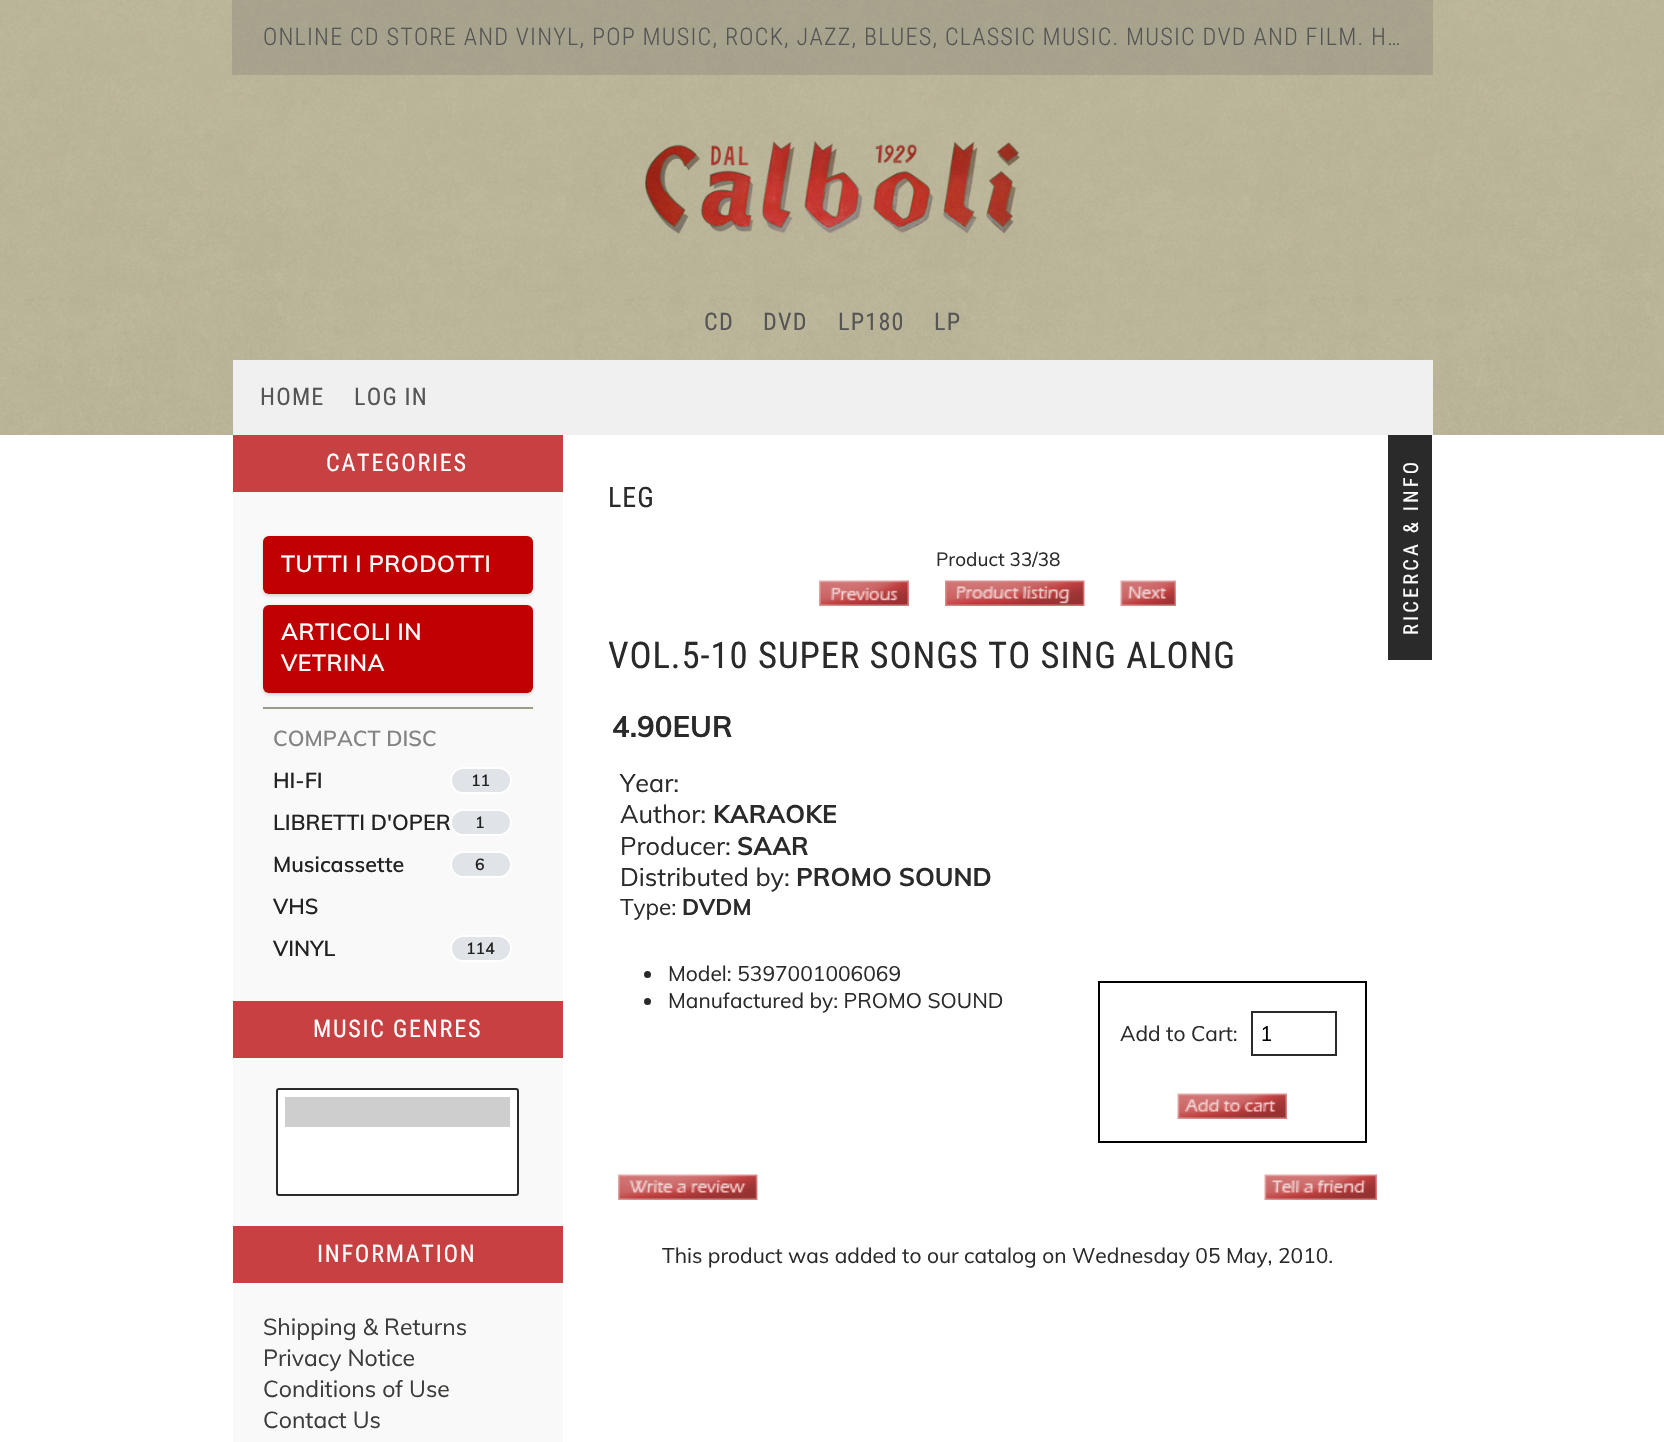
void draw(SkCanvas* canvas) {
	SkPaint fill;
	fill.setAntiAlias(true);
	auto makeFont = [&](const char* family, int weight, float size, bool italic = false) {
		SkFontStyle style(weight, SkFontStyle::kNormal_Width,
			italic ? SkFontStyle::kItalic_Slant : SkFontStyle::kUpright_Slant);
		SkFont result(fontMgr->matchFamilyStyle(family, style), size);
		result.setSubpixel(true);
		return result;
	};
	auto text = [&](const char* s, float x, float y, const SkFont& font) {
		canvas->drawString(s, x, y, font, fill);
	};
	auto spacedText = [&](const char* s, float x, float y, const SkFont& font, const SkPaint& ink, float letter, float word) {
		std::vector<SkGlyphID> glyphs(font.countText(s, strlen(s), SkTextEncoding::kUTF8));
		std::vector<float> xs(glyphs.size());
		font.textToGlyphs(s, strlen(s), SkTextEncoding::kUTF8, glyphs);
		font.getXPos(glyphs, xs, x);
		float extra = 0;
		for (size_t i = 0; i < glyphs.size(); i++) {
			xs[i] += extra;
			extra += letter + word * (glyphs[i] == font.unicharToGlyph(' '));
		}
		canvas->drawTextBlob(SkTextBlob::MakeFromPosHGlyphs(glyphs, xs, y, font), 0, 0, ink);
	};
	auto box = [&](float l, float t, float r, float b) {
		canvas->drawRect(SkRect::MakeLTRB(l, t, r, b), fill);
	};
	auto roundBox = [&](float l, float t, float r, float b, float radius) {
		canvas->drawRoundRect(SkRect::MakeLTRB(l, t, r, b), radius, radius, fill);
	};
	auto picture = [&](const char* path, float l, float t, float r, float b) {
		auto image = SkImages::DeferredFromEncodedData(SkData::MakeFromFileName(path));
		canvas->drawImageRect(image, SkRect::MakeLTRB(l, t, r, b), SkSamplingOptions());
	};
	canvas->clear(0xFFFFFFFF);
	picture("image0.png", 0, 0, 1664, 435);
	fill.setColor(0x335A5A5A);
	box(232, 0, 1433, 75);
	picture("image1.png", 645, 141, 1020, 234);
	fill.setColor(0xFFF0F0F0);
	box(233, 360, 1433, 435);
	fill.setColor(0xFFC84142);
	box(233, 435, 563, 492);
	fill.setColor(0xFFF9F9F9);
	box(233, 492, 563, 1001);
	fill.setColor(0x26000000);
	fill.setMaskFilter(SkMaskFilter::MakeBlur(kNormal_SkBlurStyle, 1.5f));
	canvas->drawRoundRect(SkRect::MakeLTRB(263, 537, 533, 596), 6, 6, fill);
	fill.setMaskFilter(nullptr);
	fill.setColor(0xFFC00000);
	roundBox(263, 536, 533, 594, 6);
	fill.setColor(0x26000000);
	fill.setMaskFilter(SkMaskFilter::MakeBlur(kNormal_SkBlurStyle, 1.5f));
	canvas->drawRoundRect(SkRect::MakeLTRB(263, 606, 533, 695), 6, 6, fill);
	fill.setMaskFilter(nullptr);
	fill.setColor(0xFFC00000);
	roundBox(263, 605, 533, 693, 6);
	fill.setColor(0xFF9A9C86);
	box(263, 707, 533, 709);
	fill.setColor(0xFFE0E3E7);
	canvas->drawRoundRect(SkRect::MakeLTRB(451, 768, 511, 793), 12.5f, 12.5f, fill);
	fill.setStyle(SkPaint::kStroke_Style);
	fill.setStrokeWidth(2);
	fill.setColor(0xFFFFFFFF);
	canvas->drawRoundRect(SkRect::MakeLTRB(451, 768, 511, 793), 12.5f, 12.5f, fill);
	fill.setStyle(SkPaint::kFill_Style);
	fill.setColor(0xFFE0E3E7);
	canvas->drawRoundRect(SkRect::MakeLTRB(451, 852, 511, 877), 12.5f, 12.5f, fill);
	fill.setStyle(SkPaint::kStroke_Style);
	fill.setColor(0xFFFFFFFF);
	canvas->drawRoundRect(SkRect::MakeLTRB(451, 852, 511, 877), 12.5f, 12.5f, fill);
	fill.setStyle(SkPaint::kFill_Style);
	fill.setColor(0xFFE0E3E7);
	canvas->drawRoundRect(SkRect::MakeLTRB(451, 936, 511, 961), 12.5f, 12.5f, fill);
	fill.setStyle(SkPaint::kStroke_Style);
	fill.setColor(0xFFFFFFFF);
	canvas->drawRoundRect(SkRect::MakeLTRB(451, 936, 511, 961), 12.5f, 12.5f, fill);
	fill.setStyle(SkPaint::kFill_Style);
	fill.setColor(0xFFC84142);
	box(233, 1001, 563, 1058);
	fill.setColor(0xFFF9F9F9);
	box(233, 1058, 563, 1226);
	fill.setColor(0xFFFFFFFF);
	canvas->drawRoundRect(SkRect::MakeLTRB(277, 1089, 518, 1195), 2, 2, fill);
	fill.setStyle(SkPaint::kStroke_Style);
	fill.setColor(0xFF2A2A2A);
	canvas->drawRoundRect(SkRect::MakeLTRB(277, 1089, 518, 1195), 2, 2, fill);
	fill.setStyle(SkPaint::kFill_Style);
	fill.setColor(0xFFCECECE);
	box(285, 1097, 510, 1127);
	fill.setColor(0xFFC84142);
	box(233, 1226, 563, 1283);
	fill.setColor(0xFFF9F9F9);
	box(233, 1283, 563, 1442);
	picture("image2.png", 819, 580, 909, 606);
	picture("image3.png", 945, 580, 1085, 606);
	picture("image4.png", 1120, 580, 1176, 606);
	fill.setColor(0xFF2A2A2A);
	canvas->drawCircle(647.5f, 974.5f, 3.5f, fill);
	canvas->drawCircle(647.5f, 1001.5f, 3.5f, fill);
	fill.setStyle(SkPaint::kStroke_Style);
	fill.setColor(0xFF000000);
	canvas->drawRect(SkRect::MakeLTRB(1099, 982, 1366, 1142), fill);
	fill.setColor(0xFF2A2A2A);
	canvas->drawRect(SkRect::MakeLTRB(1252, 1012, 1336, 1055), fill);
	picture("image5.png", 1177, 1093, 1287, 1119);
	picture("image6.png", 618, 1174, 758, 1200);
	picture("image7.png", 1264, 1174, 1377, 1200);
	fill.setStyle(SkPaint::kFill_Style);
	box(1388, 435, 1432, 660);
	auto font1 = makeFont("Roboto Condensed", 300, 24.15f);
	fill.setColor(0xFF555555);
	spacedText("ONLINE CD STORE AND VINYL, POP MUSIC, ROCK, JAZZ, BLUES, CLASSIC MUSIC. MUSIC DVD AND FILM. H…", 263, 45, font1, fill, 1.2f, 0);
	auto font2 = makeFont("Roboto Condensed", 400, 24.15f);
	spacedText("CD", 704, 330, font2, fill, 1.2f, 0);
	spacedText("DVD", 763, 330, font2, fill, 1.2f, 0);
	spacedText("LP180", 838, 330, font2, fill, 1.2f, 0);
	spacedText("LP", 934, 330, font2, fill, 1.2f, 0);
	spacedText("HOME", 260, 405, font2, fill, 1.2f, 0);
	spacedText("LOG IN", 354, 405, font2, fill, 1.2f, 0);
	fill.setColor(0xFFFFFFFF);
	spacedText("CATEGORIES", 326, 471, font2, fill, 1.75f, 0);
	auto font3 = makeFont("Muli", 600, 23);
	spacedText("TUTTI I PRODOTTI", 281, 572, font3, fill, 0.5f, 0);
	spacedText("ARTICOLI IN", 281, 640, font3, fill, 0.5f, 0);
	spacedText("VETRINA", 281, 671, font3, fill, 0.5f, 0);
	auto font4 = makeFont("Muli", 600, 21.5f);
	fill.setColor(0xFF838383);
	text("COMPACT DISC", 273, 746, font4);
	fill.setColor(0xFF222222);
	text("HI-FI", 273, 788, font4);
	auto font5 = makeFont("Muli", 600, 16);
	text("11", 471, 786, font5);
	text("LIBRETTI D'OPER", 273, 830, font4);
	fill.setColor(0xFFE0E3E7);
	canvas->drawRoundRect(SkRect::MakeLTRB(451, 810, 511, 835), 12.5f, 12.5f, fill);
	fill.setStyle(SkPaint::kStroke_Style);
	fill.setColor(0xFFFFFFFF);
	canvas->drawRoundRect(SkRect::MakeLTRB(451, 810, 511, 835), 12.5f, 12.5f, fill);
	fill.setStyle(SkPaint::kFill_Style);
	fill.setColor(0xFF222222);
	text("1", 475, 828, font5);
	text("Musicassette", 273, 872, font4);
	text("6", 475, 870, font5);
	text("VHS", 273, 914, font4);
	text("VINYL", 273, 956, font4);
	text("114", 466, 954, font5);
	fill.setColor(0xFFFFFFFF);
	spacedText("MUSIC GENRES", 313, 1037, font2, fill, 1.75f, 0);
	spacedText("INFORMATION", 317, 1262, font2, fill, 1.75f, 0);
	auto font6 = makeFont("Muli", 400, 23);
	fill.setColor(0xFF3B3B39);
	text("Shipping & Returns", 263, 1335, font6);
	text("Privacy Notice", 263, 1366, font6);
	text("Conditions of Use", 263, 1397, font6);
	text("Contact Us", 263, 1428, font6);
	auto font7 = makeFont("Roboto Condensed", 400, 28);
	fill.setColor(0xFF2A2A2A);
	spacedText("LEG", 608, 507, font7, fill, 1, 0);
	auto font8 = makeFont("Muli", 400, 19);
	text("Product 33/38", 936, 566, font8);
	auto font9 = makeFont("Roboto Condensed", 400, 36.75f);
	spacedText("VOL.5-10 SUPER SONGS TO SING ALONG", 608, 668, font9, fill, 0.9f, 0);
	auto font10 = makeFont("Muli", 700, 29.5f);
	text("4.90EUR", 612, 737, font10);
	auto font11 = makeFont("Muli", 400, 25.25f);
	text("Year:", 620, 792, font11);
	text("Author:", 620, 823, font11);
	auto font12 = makeFont("Muli", 700, 25.25f);
	text("KARAOKE", 713, 823, font12);
	text("Producer:", 620, 855, font11);
	text("SAAR", 737, 855, font12);
	text("Distributed by:", 620, 886, font11);
	text("PROMO SOUND", 796, 886, font12);
	auto font13 = makeFont("Muli", 400, 22.5f);
	text("Type:", 620, 915, font13);
	auto font14 = makeFont("Muli", 700, 22.5f);
	text("DVDM", 682, 915, font14);
	auto font15 = makeFont("Muli", 400, 21);
	text("Model: 5397001006069", 668, 981, font15);
	text("Manufactured by: PROMO SOUND", 668, 1008, font15);
	text("Add to Cart:", 1120, 1041, font15);
	fill.setColor(0xFF000000);
	text("1", 1260, 1041, font15);
	fill.setColor(0xFF2A2A2A);
	text("This product was added to our catalog on Wednesday 05 May, 2010.", 662, 1263, font15);
	auto font16 = makeFont("Roboto Condensed", 400, 20.5f);
	fill.setColor(0xFFFFFFFF);
	canvas->save();
	canvas->rotate(-90, 1418, 635);
	spacedText("RICERCA & INFO", 1418, 635, font16, fill, 3.1f, 0);
	canvas->restore();
}
